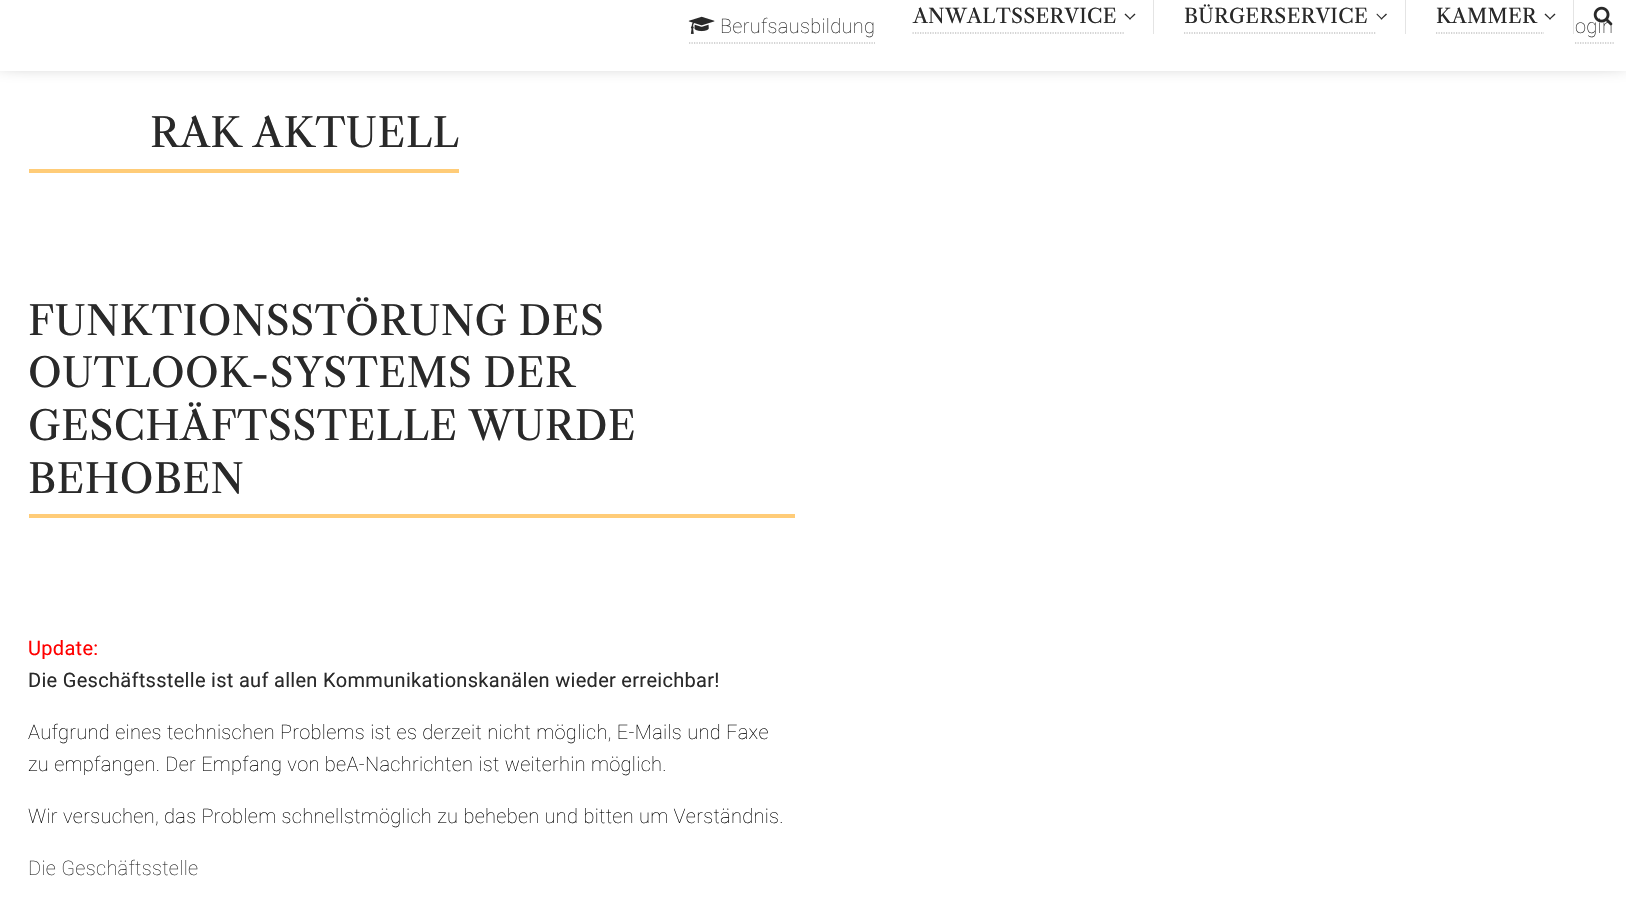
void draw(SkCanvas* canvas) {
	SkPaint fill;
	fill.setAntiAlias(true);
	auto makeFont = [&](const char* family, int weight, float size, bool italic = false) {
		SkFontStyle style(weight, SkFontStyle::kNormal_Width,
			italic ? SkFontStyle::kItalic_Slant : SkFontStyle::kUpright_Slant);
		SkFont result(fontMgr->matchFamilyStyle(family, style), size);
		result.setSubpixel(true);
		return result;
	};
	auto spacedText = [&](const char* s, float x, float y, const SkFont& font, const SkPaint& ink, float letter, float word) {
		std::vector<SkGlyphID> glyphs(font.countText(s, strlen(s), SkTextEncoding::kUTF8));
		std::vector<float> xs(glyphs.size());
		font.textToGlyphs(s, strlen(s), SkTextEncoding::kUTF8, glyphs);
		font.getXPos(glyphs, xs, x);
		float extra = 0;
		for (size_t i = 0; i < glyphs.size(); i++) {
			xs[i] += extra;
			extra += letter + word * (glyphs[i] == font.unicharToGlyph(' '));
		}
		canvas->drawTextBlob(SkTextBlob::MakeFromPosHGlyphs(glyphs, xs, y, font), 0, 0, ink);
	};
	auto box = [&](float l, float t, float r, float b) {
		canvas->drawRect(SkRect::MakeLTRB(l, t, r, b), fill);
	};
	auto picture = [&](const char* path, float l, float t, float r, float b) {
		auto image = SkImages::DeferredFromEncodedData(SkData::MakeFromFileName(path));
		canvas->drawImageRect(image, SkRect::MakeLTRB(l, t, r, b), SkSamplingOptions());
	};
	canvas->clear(0xFFFFFFFF);
	fill.setColor(0xFF000000);
	fill.setMaskFilter(SkMaskFilter::MakeBlur(kNormal_SkBlurStyle, 12.5f));
	canvas->drawRect(SkRect::MakeLTRB(0, -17, 1626, 54), fill);
	fill.setMaskFilter(nullptr);
	fill.setColor(0xFFFFFFFF);
	box(0, 0, 1626, 71);
	fill.setStyle(SkPaint::kStroke_Style);
	fill.setStrokeWidth(1.2f);
	fill.setColor(0xFFAAAAAA);
	fill.setPathEffect(SkDashPathEffect::Make({{1.25f, 1.25f}}, 0));
	canvas->drawPath(SkPathBuilder().moveTo(1460, 43).lineTo(1614, 43).detach(), fill);
	fill.setPathEffect(nullptr);
	fill.setStyle(SkPaint::kFill_Style);
	fill.setColor(0xFFFFFFFF);
	box(1460, 42, 1574, 44);
	fill.setStyle(SkPaint::kStroke_Style);
	fill.setColor(0xFFAAAAAA);
	fill.setPathEffect(SkDashPathEffect::Make({{1.25f, 1.25f}}, 0));
	canvas->drawPath(SkPathBuilder().moveTo(912.5f, 33).lineTo(1124, 33).detach(), fill);
	fill.setPathEffect(nullptr);
	fill.setStyle(SkPaint::kFill_Style);
	fill.setColor(0xFF292929);
	canvas->drawPath(SkPathBuilder().moveTo(1134.5f, 13.5f).lineTo(1135.5f, 14.5f).lineTo(1130, 19.5f).lineTo(1129, 19).close().detach(), fill);
	canvas->drawPath(SkPathBuilder().moveTo(1125.5f, 13.5f).lineTo(1131, 19).lineTo(1130, 19.5f).lineTo(1124.5f, 14.5f).close().detach(), fill);
	fill.setColor(0xFFE4E4E4);
	box(1153, 0, 1154, 34);
	fill.setStyle(SkPaint::kStroke_Style);
	fill.setColor(0xFFAAAAAA);
	fill.setPathEffect(SkDashPathEffect::Make({{1.25f, 1.25f}}, 0));
	canvas->drawPath(SkPathBuilder().moveTo(1184, 33).lineTo(1376, 33).detach(), fill);
	fill.setPathEffect(nullptr);
	fill.setStyle(SkPaint::kFill_Style);
	fill.setColor(0xFF292929);
	canvas->drawPath(SkPathBuilder().moveTo(1386, 13.5f).lineTo(1387, 14.5f).lineTo(1381.5f, 19.5f).lineTo(1380.5f, 19).close().detach(), fill);
	canvas->drawPath(SkPathBuilder().moveTo(1377, 13.5f).lineTo(1382.5f, 19).lineTo(1381.5f, 19.5f).lineTo(1376.5f, 14.5f).close().detach(), fill);
	fill.setColor(0xFFE4E4E4);
	box(1405, 0, 1406, 34);
	fill.setStyle(SkPaint::kStroke_Style);
	fill.setColor(0xFFAAAAAA);
	fill.setPathEffect(SkDashPathEffect::Make({{1.25f, 1.25f}}, 0));
	canvas->drawPath(SkPathBuilder().moveTo(1436, 33).lineTo(1544, 33).detach(), fill);
	fill.setPathEffect(nullptr);
	fill.setStyle(SkPaint::kFill_Style);
	fill.setColor(0xFF292929);
	canvas->drawPath(SkPathBuilder().moveTo(1554.5f, 13.5f).lineTo(1555.5f, 14.5f).lineTo(1550, 19.5f).lineTo(1549, 19).close().detach(), fill);
	canvas->drawPath(SkPathBuilder().moveTo(1545.5f, 13.5f).lineTo(1551, 19).lineTo(1550, 19.5f).lineTo(1544.5f, 14.5f).close().detach(), fill);
	fill.setColor(0xFFE4E4E4);
	box(1573, 0, 1574, 34);
	picture("image0.png", 1593, 6, 1613, 26);
	fill.setStyle(SkPaint::kStroke_Style);
	fill.setColor(0xFFAAAAAA);
	fill.setPathEffect(SkDashPathEffect::Make({{1.25f, 1.25f}}, 0));
	canvas->drawPath(SkPathBuilder().moveTo(689, 43).lineTo(875, 43).detach(), fill);
	fill.setPathEffect(nullptr);
	picture("image1.png", 688, 16, 715, 34);
	fill.setStyle(SkPaint::kFill_Style);
	fill.setColor(0xFFFFCC78);
	box(29, 169, 459, 173);
	box(29, 514, 795, 518);
	auto font1 = makeFont("Libre Caslon Text", 400, 20);
	fill.setColor(0xFF292929);
	spacedText("ANWALTSSERVICE", 913, 23, font1, fill, 0.3f, 0);
	spacedText("BÜRGERSERVICE", 1184, 23, font1, fill, 0.3f, 0);
	spacedText("KAMMER", 1436, 23, font1, fill, 0.3f, 0);
	auto font2 = makeFont("Roboto", 100, 20);
	spacedText("Berufsausbildung", 720, 33, font2, fill, 0.3f, 0);
	spacedText("ogin", 1575, 33, font2, fill, 0.3f, 0);
	auto font3 = makeFont("Libre Caslon Text", 400, 40.5f);
	spacedText("RAK AKTUELL", 150, 147, font3, fill, 0.3f, 0);
	spacedText("FUNKTIONSSTÖRUNG DES", 28, 335, font3, fill, 0.3f, 0);
	spacedText("OUTLOOK-SYSTEMS DER", 28, 387, font3, fill, 0.3f, 0);
	spacedText("GESCHÄFTSSTELLE WURDE", 28, 440, font3, fill, 0.3f, 0);
	spacedText("BEHOBEN", 28, 493, font3, fill, 0.3f, 0);
	auto font4 = makeFont("Roboto", 400, 20);
	fill.setColor(0xFFFF0000);
	spacedText("Update:", 28, 655, font4, fill, 0.3f, 0);
	fill.setColor(0xFF292929);
	spacedText("Die Geschäftsstelle ist auf allen Kommunikationskanälen wieder erreichbar!", 28, 687, font4, fill, 0.3f, 0);
	fill.setColor(0xFF000000);
	spacedText("Aufgrund eines technischen Problems ist es derzeit nicht möglich, E-Mails und Faxe", 28, 739, font2, fill, 0.3f, 0);
	spacedText("zu empfangen. Der Empfang von beA-Nachrichten ist weiterhin möglich.", 28, 771, font2, fill, 0.3f, 0);
	spacedText("Wir versuchen, das Problem schnellstmöglich zu beheben und bitten um Verständnis.", 28, 823, font2, fill, 0.3f, 0);
	fill.setColor(0xFF292929);
	spacedText("Die Geschäftsstelle", 28, 875, font2, fill, 0.3f, 0);
}
